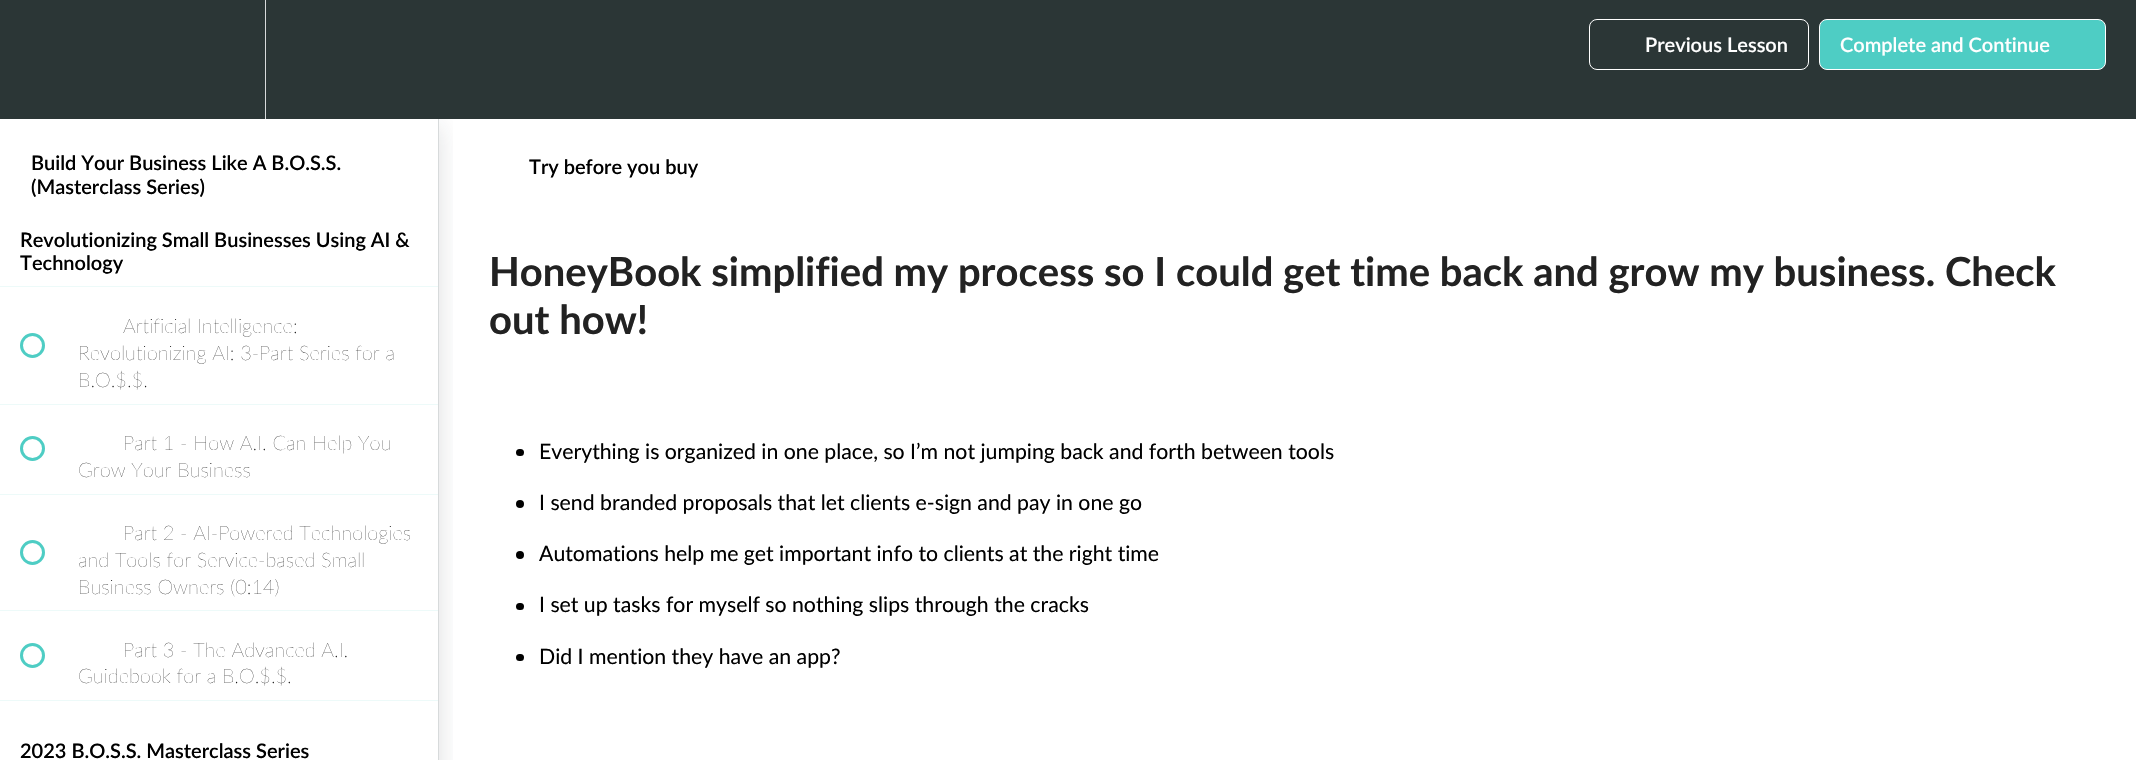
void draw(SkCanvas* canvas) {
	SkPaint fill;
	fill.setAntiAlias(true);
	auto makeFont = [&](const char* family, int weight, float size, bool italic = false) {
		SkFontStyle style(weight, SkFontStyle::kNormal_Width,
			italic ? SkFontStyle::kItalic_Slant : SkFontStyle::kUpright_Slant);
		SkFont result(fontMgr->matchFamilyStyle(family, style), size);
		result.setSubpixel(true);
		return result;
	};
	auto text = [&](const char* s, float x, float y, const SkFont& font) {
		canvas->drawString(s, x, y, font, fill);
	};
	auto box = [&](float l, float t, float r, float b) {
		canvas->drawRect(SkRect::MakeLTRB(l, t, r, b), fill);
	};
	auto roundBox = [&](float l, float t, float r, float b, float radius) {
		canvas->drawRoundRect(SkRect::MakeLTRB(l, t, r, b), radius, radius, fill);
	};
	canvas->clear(0xFFFFFFFF);
	canvas->save();
	canvas->clipRect(SkRect::MakeLTRB(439, 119, 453, 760));
	fill.setColor(0x2620272D);
	fill.setMaskFilter(SkMaskFilter::MakeBlur(kNormal_SkBlurStyle, 12.5f));
	canvas->drawRect(SkRect::MakeLTRB(0, 126, 439, 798), fill);
	fill.setMaskFilter(nullptr);
	canvas->restore();
	fill.setColor(0xFF2B3636);
	box(0, 0, 2136, 119);
	fill.setColor(0xFFD7DADB);
	box(265, 0, 266, 119);
	fill.setStyle(SkPaint::kStroke_Style);
	fill.setStrokeWidth(1);
	fill.setColor(0xFFFFFFFF);
	canvas->drawRoundRect(SkRect::MakeLTRB(1589.5f, 19.5f, 1808.5f, 69.5f), 7.5f, 7.5f, fill);
	fill.setStyle(SkPaint::kFill_Style);
	fill.setColor(0xFF4ECDC4);
	canvas->drawRoundRect(SkRect::MakeLTRB(1819.5f, 19.5f, 2105.5f, 69.5f), 7.5f, 7.5f, fill);
	fill.setStyle(SkPaint::kStroke_Style);
	fill.setColor(0xFFFFFFFF);
	canvas->drawRoundRect(SkRect::MakeLTRB(1819.5f, 19.5f, 2105.5f, 69.5f), 7.5f, 7.5f, fill);
	fill.setStyle(SkPaint::kFill_Style);
	fill.setColor(0xFFD7DADB);
	box(438, 119, 439, 760);
	fill.setColor(0xFFEDFAF9);
	box(0, 286, 438, 287);
	box(0, 404, 438, 405);
	fill.setStyle(SkPaint::kStroke_Style);
	fill.setStrokeWidth(3);
	fill.setColor(0xFF4ECDC4);
	canvas->drawCircle(32.5f, 345.5f, 11, fill);
	fill.setStyle(SkPaint::kFill_Style);
	fill.setColor(0xFFEDFAF9);
	box(0, 494, 438, 495);
	fill.setStyle(SkPaint::kStroke_Style);
	fill.setColor(0xFF4ECDC4);
	canvas->drawCircle(32.5f, 448.5f, 11, fill);
	fill.setStyle(SkPaint::kFill_Style);
	fill.setColor(0xFFEDFAF9);
	box(0, 610, 438, 611);
	fill.setStyle(SkPaint::kStroke_Style);
	fill.setColor(0xFF4ECDC4);
	canvas->drawCircle(32.5f, 552.5f, 11, fill);
	fill.setStyle(SkPaint::kFill_Style);
	fill.setColor(0xFFEDFAF9);
	box(0, 700, 438, 701);
	fill.setStyle(SkPaint::kStroke_Style);
	fill.setColor(0xFF4ECDC4);
	canvas->drawCircle(32.5f, 655.5f, 11, fill);
	fill.setStyle(SkPaint::kFill_Style);
	fill.setColor(0xFF000000);
	roundBox(516, 449, 524, 456, 3.5f);
	canvas->drawCircle(520, 504, 4, fill);
	canvas->drawCircle(520, 555, 4, fill);
	roundBox(516, 603, 524, 610, 3.5f);
	roundBox(516, 654, 524, 661, 3.5f);
	auto font1 = makeFont("Lato", 600, 20);
	fill.setColor(0xFFFFFFFF);
	text("Previous Lesson", 1645, 52, font1);
	text("Complete and Continue", 1840, 52, font1);
	fill.setColor(0xFF000000);
	text("Build Your Business Like A B.O.S.S.", 31, 170, font1);
	text("(Masterclass Series)", 31, 194, font1);
	text("Revolutionizing Small Businesses Using AI &", 20, 247, font1);
	text("Technology", 20, 270, font1);
	auto font2 = makeFont("Lato", 200, 20);
	fill.setColor(0xFF1A1A1A);
	text("Artificial Intelligence:", 123, 333, font2);
	text("Revolutionizing AI: 3-Part Series for a", 78, 360, font2);
	text("B.O.$.$.", 78, 387, font2);
	text("Part 1 - How A.I. Can Help You", 123, 450, font2);
	text("Grow Your Business", 78, 477, font2);
	text("Part 2 - AI-Powered Technologies", 123, 540, font2);
	text("and Tools for Service-based Small", 78, 567, font2);
	text("Business Owners (0:14)", 78, 594, font2);
	text("Part 3 - The Advanced A.I.", 123, 657, font2);
	text("Guidebook for a B.O.$.$.", 78, 683, font2);
	fill.setColor(0xFF000000);
	text("2023 B.O.S.S. Masterclass Series", 20, 758, font1);
	text("Try before you buy", 529, 174, font1);
	auto font3 = makeFont("Lato", 700, 40);
	fill.setColor(0xFF222222);
	text("HoneyBook simplified my process so I could get time back and grow my business. Check", 489, 286, font3);
	text("out how!", 489, 334, font3);
	auto font4 = makeFont("Lato", 400, 21.25f);
	fill.setColor(0xFF000000);
	text("Everything is organized in one place, so I’m not jumping back and forth between tools", 539, 459, font4);
	text("I send branded proposals that let clients e-sign and pay in one go", 539, 510, font4);
	text("Automations help me get important info to clients at the right time", 539, 561, font4);
	text("I set up tasks for myself so nothing slips through the cracks", 539, 612, font4);
	text("Did I mention they have an app?", 539, 664, font4);
}
